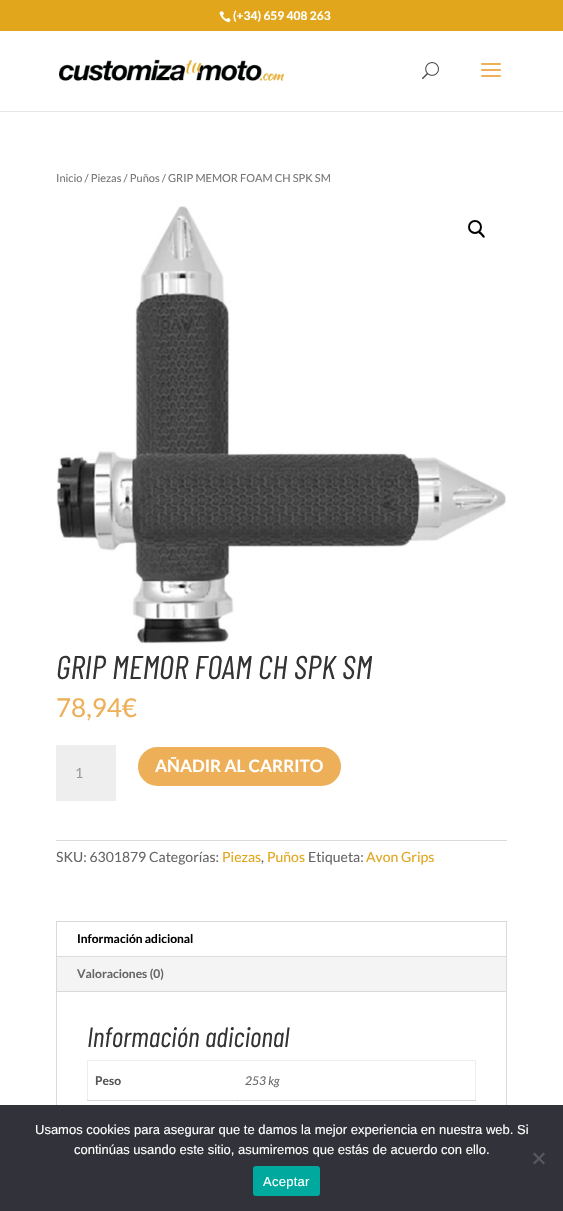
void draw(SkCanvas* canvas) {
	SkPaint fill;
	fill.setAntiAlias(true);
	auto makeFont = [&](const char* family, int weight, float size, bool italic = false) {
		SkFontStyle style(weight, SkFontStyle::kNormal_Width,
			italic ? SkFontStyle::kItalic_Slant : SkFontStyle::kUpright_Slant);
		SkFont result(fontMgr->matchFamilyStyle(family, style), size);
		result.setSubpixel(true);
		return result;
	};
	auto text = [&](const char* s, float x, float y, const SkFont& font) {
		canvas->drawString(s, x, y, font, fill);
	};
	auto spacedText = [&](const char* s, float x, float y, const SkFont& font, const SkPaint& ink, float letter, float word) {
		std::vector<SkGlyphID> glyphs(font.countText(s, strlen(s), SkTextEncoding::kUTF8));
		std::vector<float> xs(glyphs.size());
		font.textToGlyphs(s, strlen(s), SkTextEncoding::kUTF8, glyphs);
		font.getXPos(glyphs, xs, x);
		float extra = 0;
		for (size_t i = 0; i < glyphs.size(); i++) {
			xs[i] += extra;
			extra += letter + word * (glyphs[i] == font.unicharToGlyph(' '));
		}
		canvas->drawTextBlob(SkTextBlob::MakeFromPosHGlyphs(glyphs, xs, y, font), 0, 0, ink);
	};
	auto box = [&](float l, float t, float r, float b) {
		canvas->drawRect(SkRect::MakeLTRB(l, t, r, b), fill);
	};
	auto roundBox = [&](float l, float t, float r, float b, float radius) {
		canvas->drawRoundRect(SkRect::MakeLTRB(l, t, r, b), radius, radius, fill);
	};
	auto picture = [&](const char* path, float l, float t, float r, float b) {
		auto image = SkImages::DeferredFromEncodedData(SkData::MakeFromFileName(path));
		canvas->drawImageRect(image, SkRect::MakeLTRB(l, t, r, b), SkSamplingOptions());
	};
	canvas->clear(0xFFFFFFFF);
	fill.setColor(0xFFE2A61D);
	box(0, 0, 563, 31);
	picture("image0.png", 219, 11, 231, 23);
	fill.setColor(0xFFE6E6E6);
	box(0, 111, 563, 112);
	picture("image1.png", 59, 59, 284, 81);
	picture("image2.png", 422, 62, 439, 80);
	picture("image3.png", 481, 63, 501, 77);
	picture("image4.png", 56, 206, 506, 644);
	fill.setStyle(SkPaint::kStroke_Style);
	fill.setStrokeWidth(2);
	fill.setColor(0xFF000000);
	canvas->drawCircle(475, 227, 6, fill);
	fill.setStyle(SkPaint::kFill_Style);
	canvas->drawPath(SkPathBuilder().moveTo(479, 231.5f).cubicTo(480, 230.5f, 482, 233, 482.5f, 233.5f).cubicTo(483, 234.5f, 485.5f, 236, 484.5f, 237.5f).cubicTo(483.5f, 238.5f, 481.5f, 236, 481, 235).cubicTo(480.5f, 234.5f, 477.5f, 233, 479, 231.5f).close().detach(), fill);
	fill.setColor(0xFFEEEEEE);
	box(56, 745, 116, 801);
	fill.setColor(0xFFEDB059);
	canvas->drawRoundRect(SkRect::MakeLTRB(137, 746, 342, 787), 20.5f, 20.5f, fill);
	fill.setStyle(SkPaint::kStroke_Style);
	fill.setColor(0xFFFFFFFF);
	canvas->drawRoundRect(SkRect::MakeLTRB(137, 746, 342, 787), 20.5f, 20.5f, fill);
	fill.setStyle(SkPaint::kFill_Style);
	fill.setColor(0xFFDADADA);
	box(56, 840, 507, 841);
	fill.setStyle(SkPaint::kStroke_Style);
	fill.setStrokeWidth(1);
	fill.setColor(0xFFD9D9D9);
	canvas->drawRect(SkRect::MakeLTRB(56.5f, 921.5f, 506.5f, 1146.5f), fill);
	fill.setStyle(SkPaint::kFill_Style);
	fill.setColor(0xFFF4F4F4);
	box(57, 957, 506, 991);
	fill.setColor(0xFFE0DADF);
	box(57, 956, 506, 957);
	fill.setColor(0xFFD9D9D9);
	box(57, 991, 506, 992);
	fill.setColor(0xFFEEEEEE);
	box(87, 1060, 476, 1061);
	box(475, 1060, 476, 1101);
	fill.setColor(0xFFD6D6D6);
	box(87, 1100, 476, 1101);
	fill.setColor(0xFFEEEEEE);
	box(87, 1060, 88, 1101);
	fill.setColor(0xFFD6D6D6);
	box(87, 1100, 88, 1101);
	fill.setColor(0xFFC1C1C1);
	box(237, 1100, 238, 1101);
	fill.setColor(0xFF32323A);
	box(0, 1105, 563, 1211);
	fill.setColor(0xFF59595D);
	canvas->drawPath(SkPathBuilder().moveTo(543.5f, 1152.5f).lineTo(545, 1154).lineTo(534.5f, 1164.5f).lineTo(533, 1163).close().detach(), fill);
	canvas->drawPath(SkPathBuilder().moveTo(533, 1154).lineTo(534.5f, 1152.5f).lineTo(545, 1163).lineTo(543.5f, 1164.5f).close().detach(), fill);
	fill.setColor(0xFF00A99D);
	roundBox(253, 1166, 320, 1196, 3);
	auto font1 = makeFont("Lato", 700, 12);
	fill.setColor(0xFFFFFFFF);
	text("(+34) 659 408 263", 233, 20, font1);
	auto font2 = makeFont("Lato", 400, 11);
	fill.setColor(0xFF767676);
	text("Inicio / Piezas / Puños / GRIP MEMOR FOAM CH SPK SM", 56, 182, font2);
	auto font3 = makeFont("Barlow Condensed", 400, 33, true);
	fill.setColor(0xFF333333);
	text("GRIP MEMOR FOAM CH SPK SM", 56, 679, font3);
	auto font4 = makeFont("Lato", 400, 26);
	fill.setColor(0xFFEDB059);
	text("78,94€", 56, 717, font4);
	auto font5 = makeFont("Lato", 400, 14);
	fill.setColor(0xFF999999);
	text("1", 75, 778, font5);
	auto font6 = makeFont("Lato", 700, 17);
	fill.setColor(0xFFFFFFFF);
	text("AÑADIR AL CARRITO", 155, 772, font6);
	fill.setColor(0xFF666666);
	text("SKU: 6301879 Categorías:", 56, 862, font5);
	fill.setColor(0xFFE2A61D);
	text("Piezas", 222, 862, font5);
	fill.setColor(0xFF666666);
	text(",", 261, 862, font5);
	fill.setColor(0xFFE2A61D);
	text("Puños", 267, 862, font5);
	fill.setColor(0xFF666666);
	text("Etiqueta:", 308, 862, font5);
	fill.setColor(0xFFE2A61D);
	text("Avon Grips", 366, 862, font5);
	fill.setColor(0xFF000000);
	text("Información adicional", 77, 943, font1);
	fill.setColor(0xFF666666);
	text("Valoraciones (0)", 77, 978, font1);
	auto font7 = makeFont("Barlow Condensed", 400, 28, true);
	fill.setColor(0xFF333333);
	text("Información adicional", 87, 1047, font7);
	fill.setColor(0xFF555555);
	text("Peso", 95, 1085, font1);
	auto font8 = makeFont("Lato", 400, 12, true);
	fill.setColor(0xFF666666);
	text("253 kg", 245, 1085, font8);
	auto font9 = makeFont("Liberation Sans", 400, 13);
	fill.setColor(0xFFFFFFFF);
	text("Usamos cookies para asegurar que te damos la mejor experiencia en nuestra web. Si", 35, 1134, font9);
	text("continúas usando este sitio, asumiremos que estás de acuerdo con ello.", 74, 1154, font9);
	spacedText("Aceptar", 263, 1186, font9, fill, 0.25f, 0);
}
